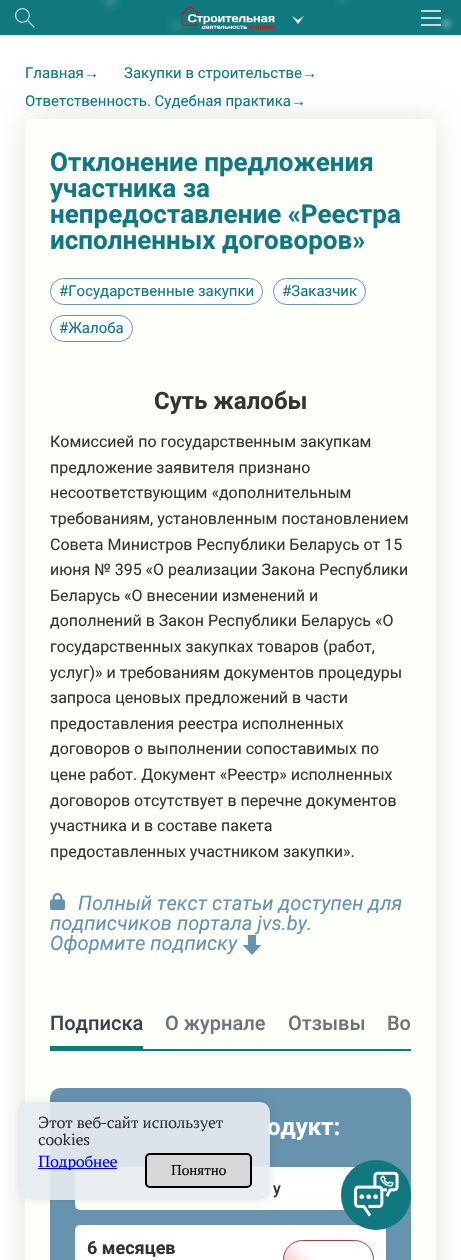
void draw(SkCanvas* canvas) {
	SkPaint fill;
	fill.setAntiAlias(true);
	auto makeFont = [&](const char* family, int weight, float size, bool italic = false) {
		SkFontStyle style(weight, SkFontStyle::kNormal_Width,
			italic ? SkFontStyle::kItalic_Slant : SkFontStyle::kUpright_Slant);
		SkFont result(fontMgr->matchFamilyStyle(family, style), size);
		result.setSubpixel(true);
		return result;
	};
	auto text = [&](const char* s, float x, float y, const SkFont& font) {
		canvas->drawString(s, x, y, font, fill);
	};
	auto box = [&](float l, float t, float r, float b) {
		canvas->drawRect(SkRect::MakeLTRB(l, t, r, b), fill);
	};
	auto roundBox = [&](float l, float t, float r, float b, float radius) {
		canvas->drawRoundRect(SkRect::MakeLTRB(l, t, r, b), radius, radius, fill);
	};
	auto picture = [&](const char* path, float l, float t, float r, float b) {
		auto image = SkImages::DeferredFromEncodedData(SkData::MakeFromFileName(path));
		canvas->drawImageRect(image, SkRect::MakeLTRB(l, t, r, b), SkSamplingOptions());
	};
	canvas->clear(0xFFFFFFFF);
	fill.setColor(0xFF107980);
	box(0, 0, 461, 35);
	fill.setColor(0xFFFFFFFF);
	fill.setMaskFilter(SkMaskFilter::MakeBlur(kNormal_SkBlurStyle, 5));
	canvas->drawRoundRect(SkRect::MakeLTRB(108, -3, 113, 2), 2.5f, 2.5f, fill);
	fill.setMaskFilter(nullptr);
	picture("image1.png", 181, 6, 275, 30);
	fill.setMaskFilter(SkMaskFilter::MakeBlur(kNormal_SkBlurStyle, 5));
	canvas->drawRoundRect(SkRect::MakeLTRB(175, 23, 179, 27), 2, 2, fill);
	fill.setMaskFilter(nullptr);
	fill.setMaskFilter(SkMaskFilter::MakeBlur(kNormal_SkBlurStyle, 4));
	canvas->drawRoundRect(SkRect::MakeLTRB(340, -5, 344, -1), 2, 2, fill);
	fill.setMaskFilter(nullptr);
	picture("image2.png", 421, 10, 441, 26);
	fill.setMaskFilter(SkMaskFilter::MakeBlur(kNormal_SkBlurStyle, 3));
	canvas->drawRoundRect(SkRect::MakeLTRB(444, 21, 449, 26), 2.5f, 2.5f, fill);
	fill.setMaskFilter(nullptr);
	fill.setColor(0xFFE3E5DB);
	fill.setMaskFilter(SkMaskFilter::MakeBlur(kNormal_SkBlurStyle, 15));
	canvas->drawRoundRect(SkRect::MakeLTRB(25, 119, 436, 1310), 5, 5, fill);
	fill.setMaskFilter(nullptr);
	fill.setColor(0xFFFDFFF9);
	roundBox(25, 119, 436, 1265, 5);
	fill.setColor(0xFFFFFFFF);
	fill.setMaskFilter(SkMaskFilter::MakeBlur(kNormal_SkBlurStyle, 5));
	canvas->drawRoundRect(SkRect::MakeLTRB(65, 213, 68, 216), 1.5f, 1.5f, fill);
	fill.setMaskFilter(nullptr);
	fill.setMaskFilter(SkMaskFilter::MakeBlur(kNormal_SkBlurStyle, 2));
	canvas->drawRoundRect(SkRect::MakeLTRB(185, 598, 190, 603), 2.5f, 2.5f, fill);
	fill.setMaskFilter(nullptr);
	fill.setMaskFilter(SkMaskFilter::MakeBlur(kNormal_SkBlurStyle, 3));
	canvas->drawRoundRect(SkRect::MakeLTRB(333, 700, 336, 703), 1.5f, 1.5f, fill);
	fill.setMaskFilter(nullptr);
	fill.setMaskFilter(SkMaskFilter::MakeBlur(kNormal_SkBlurStyle, 4));
	canvas->drawRoundRect(SkRect::MakeLTRB(283, 849, 288, 854), 2.5f, 2.5f, fill);
	fill.setMaskFilter(nullptr);
	picture("image0.png", 15, 8, 35, 28);
	canvas->drawPath(SkPathBuilder().moveTo(298, 24).lineTo(304, 16).lineTo(298, 20).lineTo(292, 16).close().detach(), fill);
	canvas->drawRoundRect(SkRect::MakeLTRB(50.5f, 278.5f, 262.5f, 304.5f), 13, 13, fill);
	fill.setStyle(SkPaint::kStroke_Style);
	fill.setStrokeWidth(1);
	fill.setColor(0xFF6793AE);
	canvas->drawRoundRect(SkRect::MakeLTRB(50.5f, 278.5f, 262.5f, 304.5f), 13, 13, fill);
	fill.setStyle(SkPaint::kFill_Style);
	fill.setColor(0xFFFFFFFF);
	canvas->drawRoundRect(SkRect::MakeLTRB(273.5f, 278.5f, 365.5f, 304.5f), 13, 13, fill);
	fill.setStyle(SkPaint::kStroke_Style);
	fill.setColor(0xFF6793AE);
	canvas->drawRoundRect(SkRect::MakeLTRB(273.5f, 278.5f, 365.5f, 304.5f), 13, 13, fill);
	fill.setStyle(SkPaint::kFill_Style);
	fill.setColor(0xFFFFFFFF);
	canvas->drawRoundRect(SkRect::MakeLTRB(50.5f, 315.5f, 132.5f, 341.5f), 13, 13, fill);
	fill.setStyle(SkPaint::kStroke_Style);
	fill.setColor(0xFF6793AE);
	canvas->drawRoundRect(SkRect::MakeLTRB(50.5f, 315.5f, 132.5f, 341.5f), 13, 13, fill);
	picture("image3.png", 50, 893, 65, 910);
	picture("image4.png", 242, 935, 262, 955);
	fill.setStyle(SkPaint::kFill_Style);
	fill.setColor(0xFF107980);
	box(50, 1049, 411, 1051);
	box(50, 1046, 143, 1049);
	fill.setColor(0xFF6793AE);
	roundBox(50, 1088, 411, 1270, 10);
	fill.setColor(0xFFFFFFFF);
	roundBox(75, 1167, 386, 1210, 5);
	roundBox(75, 1225, 386, 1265, 5);
	fill.setStyle(SkPaint::kStroke_Style);
	fill.setColor(0xFFAB3D3F);
	canvas->drawRoundRect(SkRect::MakeLTRB(283.5f, 1240.5f, 373.5f, 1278.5f), 19, 19, fill);
	fill.setStyle(SkPaint::kFill_Style);
	{
		const SkColor colors[] = {0x00E84747, 0x40E84747, 0x00E84747};
		const float stops[] = {0.35f, 0.5f, 0.65f};
		const SkPoint ends[] = {{230, 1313}, {338, 1206}};
		fill.setShader(SkGradientShader::MakeLinear(ends, colors, stops, 3, SkTileMode::kClamp));
		fill.setAlpha(255);
	}
	roundBox(284, 1241, 373, 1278, 18.5f);
	canvas->save();
	canvas->clipPath(SkPathBuilder(SkPathFillType::kEvenOdd).moveTo(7, 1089).lineTo(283, 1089).lineTo(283, 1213).lineTo(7, 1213).close().moveTo(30, 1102).lineTo(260, 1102).cubicTo(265.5f, 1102, 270, 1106.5f, 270, 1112).lineTo(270, 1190).cubicTo(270, 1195.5f, 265.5f, 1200, 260, 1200).lineTo(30, 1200).cubicTo(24.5f, 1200, 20, 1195.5f, 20, 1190).lineTo(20, 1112).cubicTo(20, 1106.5f, 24.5f, 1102, 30, 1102).close().detach(), true);
	fill.setShader(nullptr);
	fill.setColor(0x1A000000);
	fill.setMaskFilter(SkMaskFilter::MakeBlur(kNormal_SkBlurStyle, 4));
	canvas->drawRoundRect(SkRect::MakeLTRB(20, 1102, 270, 1200), 10, 10, fill);
	fill.setMaskFilter(nullptr);
	canvas->restore();
	fill.setColor(0xFF107980);
	canvas->drawCircle(376, 1195, 35, fill);
	fill.setColor(0x33107980);
	canvas->drawCircle(376, 1195, 35, fill);
	canvas->drawCircle(376, 1195, 35, fill);
	picture("image5.png", 354, 1171, 399, 1217);
	auto font1 = makeFont("Roboto", 400, 15);
	fill.setColor(0xFF107980);
	text("Главная", 25, 78, font1);
	auto font2 = makeFont("Liberation Sans", 400, 15);
	text("→", 84, 78, font2);
	text("Закупки в строительстве", 124, 78, font1);
	text("→", 302, 78, font2);
	text("Ответственность. Судебная практика", 25, 106, font1);
	text("→", 291, 106, font2);
	auto font3 = makeFont("Roboto", 700, 26);
	text("Отклонение предложения", 50, 171, font3);
	text("участника за", 50, 197, font3);
	text("непредоставление «Реестра", 50, 223, font3);
	text("исполненных договоров»", 50, 249, font3);
	text("#Государственные закупки", 59, 296, font1);
	text("#Заказчик", 282, 296, font1);
	text("#Жалоба", 59, 333, font1);
	auto font4 = makeFont("Roboto", 700, 24);
	fill.setColor(0xFF333630);
	text("Суть жалобы", 154, 409, font4);
	auto font5 = makeFont("Roboto", 400, 16);
	text("Комиссией по государственным закупкам", 50, 447, font5);
	text("предложение заявителя признано", 50, 473, font5);
	text("несоответствующим «дополнительным", 50, 498, font5);
	text("требованиям, установленным постановлением", 50, 524, font5);
	text("Совета Министров Республики Беларусь от 15", 50, 550, font5);
	text("июня № 395 «О реализации Закона Республики", 50, 575, font5);
	text("Беларусь «О внесении изменений и", 50, 601, font5);
	text("дополнений в Закон Республики Беларусь «О", 50, 626, font5);
	text("государственных закупках товаров (работ,", 50, 652, font5);
	text("услуг)» и требованиям документов процедуры", 50, 678, font5);
	text("запроса ценовых предложений в части", 50, 703, font5);
	text("предоставления реестра исполненных", 50, 729, font5);
	text("договоров о выполнении сопоставимых по", 50, 754, font5);
	text("цене работ. Документ «Реестр» исполненных", 50, 780, font5);
	text("договоров отсутствует в перечне документов", 50, 806, font5);
	text("участника и в составе пакета", 50, 831, font5);
	text("предоставленных участником закупки».", 50, 857, font5);
	auto font6 = makeFont("Roboto", 400, 20, true);
	fill.setColor(0xFF6793AE);
	text("Полный текст статьи доступен для", 78, 910, font6);
	text("подписчиков портала jvs.by.", 50, 930, font6);
	text("Оформите подписку", 50, 950, font6);
	auto font7 = makeFont("Roboto", 500, 20);
	fill.setColor(0xFF3A434B);
	text("Подписка", 50, 1030, font7);
	fill.setColor(0xFF6D7478);
	text("О журнале", 165, 1030, font7);
	text("Отзывы", 288, 1030, font7);
	text("Во", 387, 1030, font7);
	fill.setColor(0xFFFFFFFF);
	text("одукт:", 267, 1135, font4);
	auto font8 = makeFont("Roboto", 500, 16);
	fill.setColor(0xFF333630);
	text("y", 273, 1194, font8);
	auto font9 = makeFont("Roboto", 700, 18);
	text("6 месяцев", 87, 1254, font9);
	fill.setColor(0xE6E7EDF0);
	roundBox(20, 1102, 270, 1200, 10);
	auto font10 = makeFont("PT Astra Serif", 400, 17);
	fill.setColor(0xFF302B40);
	text("Этот веб-сайт использует", 38, 1128, font10);
	text("cookies", 38, 1145, font10);
	fill.setColor(0xFF0000FF);
	box(38, 1168, 117, 1169);
	text("Подробнее", 38, 1167, font10);
	fill.setColor(0xD9D5D4D4);
	canvas->drawRoundRect(SkRect::MakeLTRB(146, 1154, 251, 1187), 4, 4, fill);
	fill.setStyle(SkPaint::kStroke_Style);
	fill.setStrokeWidth(2);
	fill.setColor(0xFF000000);
	canvas->drawRoundRect(SkRect::MakeLTRB(146, 1154, 251, 1187), 4, 4, fill);
	auto font11 = makeFont("PT Astra Serif", 400, 15);
	fill.setStyle(SkPaint::kFill_Style);
	text("Понятно", 171, 1175, font11);
}
